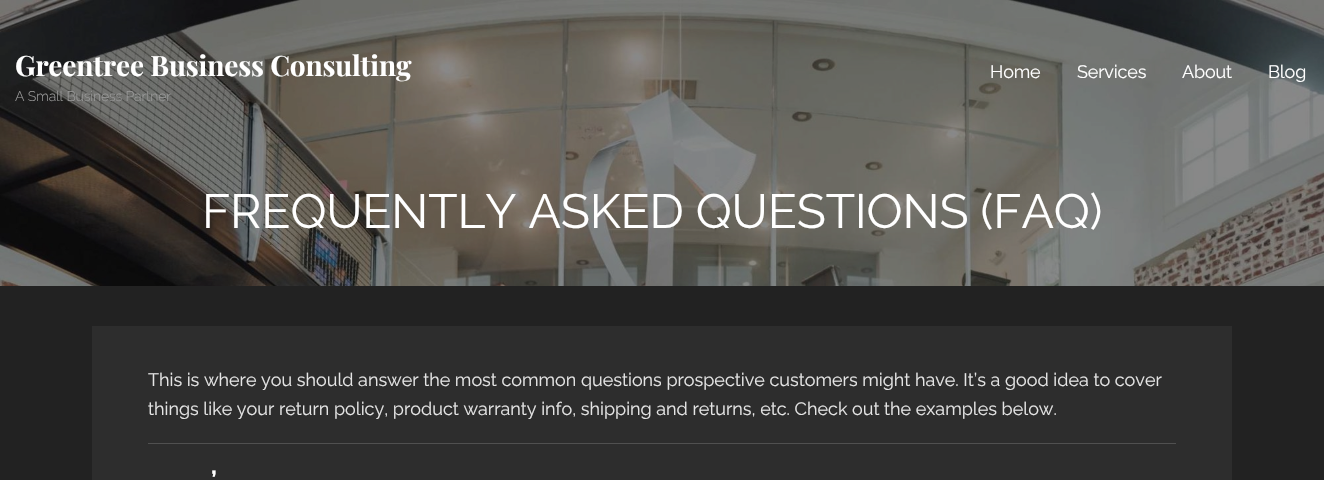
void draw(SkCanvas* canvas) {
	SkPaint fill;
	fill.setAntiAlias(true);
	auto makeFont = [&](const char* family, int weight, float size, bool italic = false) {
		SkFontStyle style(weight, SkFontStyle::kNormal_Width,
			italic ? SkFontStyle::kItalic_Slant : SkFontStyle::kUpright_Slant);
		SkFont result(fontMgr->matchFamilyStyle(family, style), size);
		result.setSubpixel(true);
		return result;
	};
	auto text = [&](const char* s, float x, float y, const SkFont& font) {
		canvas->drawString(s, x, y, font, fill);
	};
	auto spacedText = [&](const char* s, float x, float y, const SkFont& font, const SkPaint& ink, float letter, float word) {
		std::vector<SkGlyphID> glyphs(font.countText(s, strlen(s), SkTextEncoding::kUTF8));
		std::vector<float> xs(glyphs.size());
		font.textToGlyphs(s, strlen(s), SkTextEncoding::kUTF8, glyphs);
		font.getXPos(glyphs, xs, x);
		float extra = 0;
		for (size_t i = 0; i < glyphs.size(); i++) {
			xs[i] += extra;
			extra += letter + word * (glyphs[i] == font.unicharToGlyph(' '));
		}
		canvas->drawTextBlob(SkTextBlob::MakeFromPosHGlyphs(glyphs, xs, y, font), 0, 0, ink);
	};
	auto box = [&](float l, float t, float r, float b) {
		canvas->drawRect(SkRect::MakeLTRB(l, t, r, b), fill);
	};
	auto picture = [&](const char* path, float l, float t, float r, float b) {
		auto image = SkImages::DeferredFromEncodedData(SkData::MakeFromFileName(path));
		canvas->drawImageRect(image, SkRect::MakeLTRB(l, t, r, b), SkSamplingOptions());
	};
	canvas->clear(0xFF222222);
	picture("image0.png", 0, 0, 1324, 286);
	fill.setColor(0xFF2D2D2D);
	box(92, 326, 1232, 480);
	fill.setColor(0xFF505050);
	box(148, 443, 1176, 444);
	auto font1 = makeFont("Playfair Display", 700, 28);
	fill.setColor(0xFFFFFFFF);
	spacedText("Greentree Business Consulting", 15, 76, font1, fill, -0.15f, 0);
	auto font2 = makeFont("Raleway", 300, 14);
	fill.setColor(0xFF999999);
	spacedText("A Small Business Partner", 15, 101, font2, fill, -0.15f, 0);
	auto font3 = makeFont("Raleway", 400, 18);
	fill.setColor(0xFFFFFFFF);
	spacedText("Home", 990, 78, font3, fill, -0.15f, 0);
	spacedText("Services", 1077, 78, font3, fill, -0.15f, 0);
	spacedText("About", 1182, 78, font3, fill, -0.15f, 0);
	spacedText("Blog", 1268, 78, font3, fill, -0.15f, 0);
	auto font4 = makeFont("Raleway", 400, 48);
	spacedText("FREQUENTLY ASKED QUESTIONS (FAQ)", 202, 228, font4, fill, -0.15f, 0);
	fill.setColor(0xFFE5E5E5);
	text("This is where you should answer the most common questions prospective customers might have. It’s a good idea to cover", 148, 386, font3);
	text("things like your return policy, product warranty info, shipping and returns, etc. Check out the examples below.", 148, 415, font3);
	auto font5 = makeFont("Raleway", 700, 24);
	fill.setColor(0xFFFFFFFF);
	text("’", 211, 488, font5);
}
